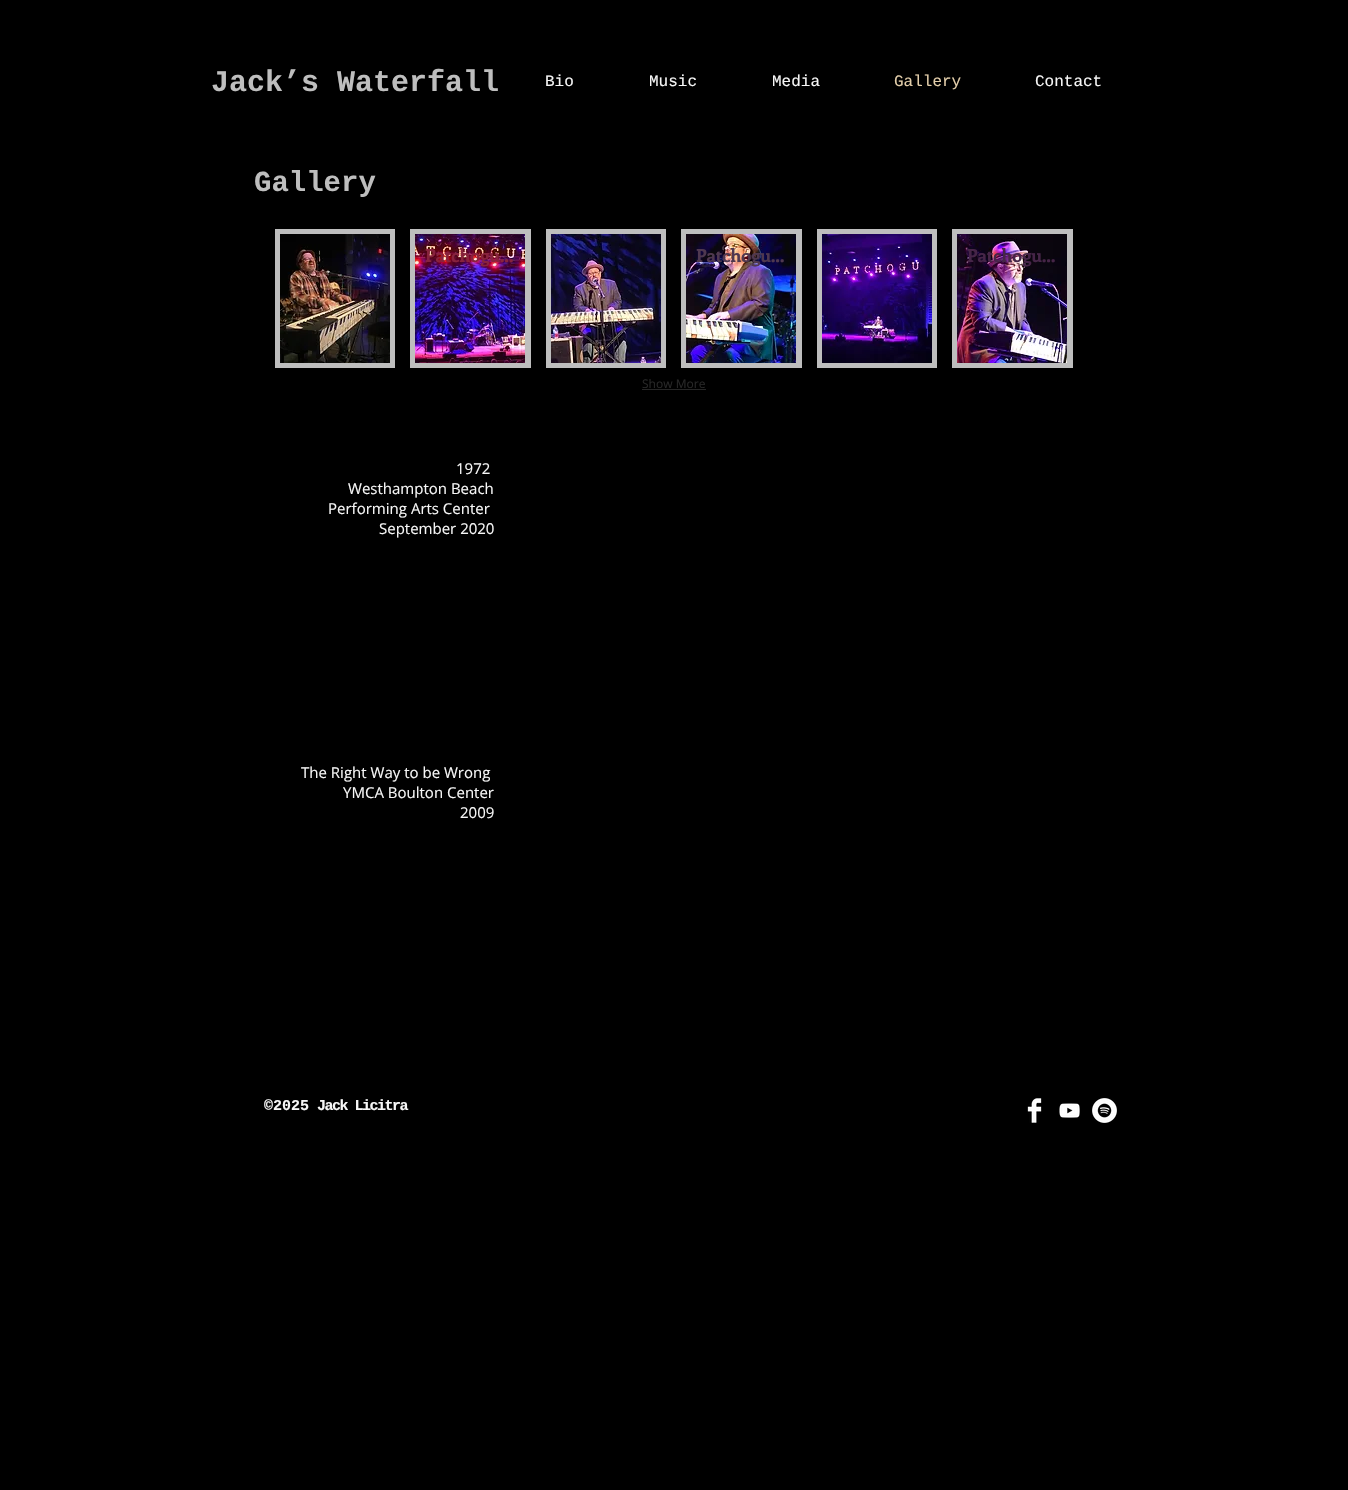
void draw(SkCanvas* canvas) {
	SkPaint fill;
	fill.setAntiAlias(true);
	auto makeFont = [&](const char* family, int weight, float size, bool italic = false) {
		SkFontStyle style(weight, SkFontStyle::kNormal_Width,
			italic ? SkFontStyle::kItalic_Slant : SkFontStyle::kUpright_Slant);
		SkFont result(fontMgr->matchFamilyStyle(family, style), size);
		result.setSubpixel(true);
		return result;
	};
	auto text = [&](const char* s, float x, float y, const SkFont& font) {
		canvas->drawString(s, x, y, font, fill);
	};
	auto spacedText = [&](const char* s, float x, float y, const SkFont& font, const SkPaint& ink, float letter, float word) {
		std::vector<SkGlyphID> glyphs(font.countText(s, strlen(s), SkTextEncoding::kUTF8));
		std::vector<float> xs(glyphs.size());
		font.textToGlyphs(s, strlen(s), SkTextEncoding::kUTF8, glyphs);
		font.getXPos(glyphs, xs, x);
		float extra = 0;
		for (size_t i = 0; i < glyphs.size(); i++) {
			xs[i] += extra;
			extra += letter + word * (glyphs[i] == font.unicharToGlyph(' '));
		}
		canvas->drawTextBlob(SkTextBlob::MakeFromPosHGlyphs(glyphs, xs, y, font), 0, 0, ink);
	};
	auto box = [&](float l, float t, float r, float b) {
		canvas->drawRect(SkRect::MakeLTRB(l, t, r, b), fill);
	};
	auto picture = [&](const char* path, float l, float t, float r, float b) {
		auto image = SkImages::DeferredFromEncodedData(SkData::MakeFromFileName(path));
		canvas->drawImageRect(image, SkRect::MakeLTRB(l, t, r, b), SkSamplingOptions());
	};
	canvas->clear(0xFF000000);
	fill.setColor(0xFFBEBEBE);
	box(275, 229, 395, 368);
	picture("image0.png", 280, 234, 390, 363);
	box(410, 229, 531, 368);
	picture("image1.png", 415, 234, 525, 363);
	box(546, 229, 666, 368);
	picture("image2.png", 551, 234, 661, 363);
	box(681, 229, 802, 368);
	picture("image3.png", 686, 234, 796, 363);
	box(817, 229, 937, 368);
	picture("image4.png", 822, 234, 932, 363);
	box(952, 229, 1073, 368);
	picture("image5.png", 957, 234, 1067, 363);
	fill.setColor(0xFF272727);
	box(642, 389, 706, 390);
	picture("image6.png", 1027, 1098, 1042, 1123);
	picture("image7.png", 1059, 1103, 1080, 1118);
	picture("image8.png", 1092, 1098, 1117, 1123);
	auto font1 = makeFont("Liberation Mono", 700, 30);
	fill.setColor(0xFFBEBEBE);
	text("Jack’s Waterfall", 211, 91, font1);
	auto font2 = makeFont("Liberation Mono", 400, 16);
	fill.setColor(0xFFF6F6F6);
	text("Bio", 545, 86, font2);
	text("Music", 649, 86, font2);
	text("Media", 772, 86, font2);
	fill.setColor(0xFFE3CEAA);
	text("Gallery", 894, 86, font2);
	fill.setColor(0xFFF6F6F6);
	text("Contact", 1035, 86, font2);
	auto font3 = makeFont("Liberation Mono", 700, 29);
	fill.setColor(0xFFBEBEBE);
	text("Gallery", 254, 191, font3);
	auto font4 = makeFont("Enriqueta", 700, 18);
	fill.setColor(0xFF88223D);
	text("Patchogu…", 425, 262, font4);
	fill.setColor(0xFF4F384F);
	text("Patchogu…", 696, 262, font4);
	fill.setColor(0xFF462548);
	text("Patchogu…", 967, 262, font4);
	auto font5 = makeFont("Open Sans", 400, 12);
	fill.setColor(0xFF272727);
	text("Show More", 642, 388, font5);
	auto font6 = makeFont("Open Sans", 400, 15);
	fill.setColor(0xFFF6F6F6);
	text("1972", 456, 474, font6);
	text("Westhampton Beach", 348, 494, font6);
	text("Performing Arts Center", 328, 514, font6);
	text("September 2020", 379, 534, font6);
	text("The Right Way to be Wrong", 301, 778, font6);
	text("YMCA Boulton Center", 343, 798, font6);
	text("2009", 460, 818, font6);
	auto font7 = makeFont("Liberation Mono", 700, 15);
	text("©2025", 264, 1110, font7);
	spacedText("Jack Licitra", 317, 1110, font7, fill, -1.5f, 0);
}
